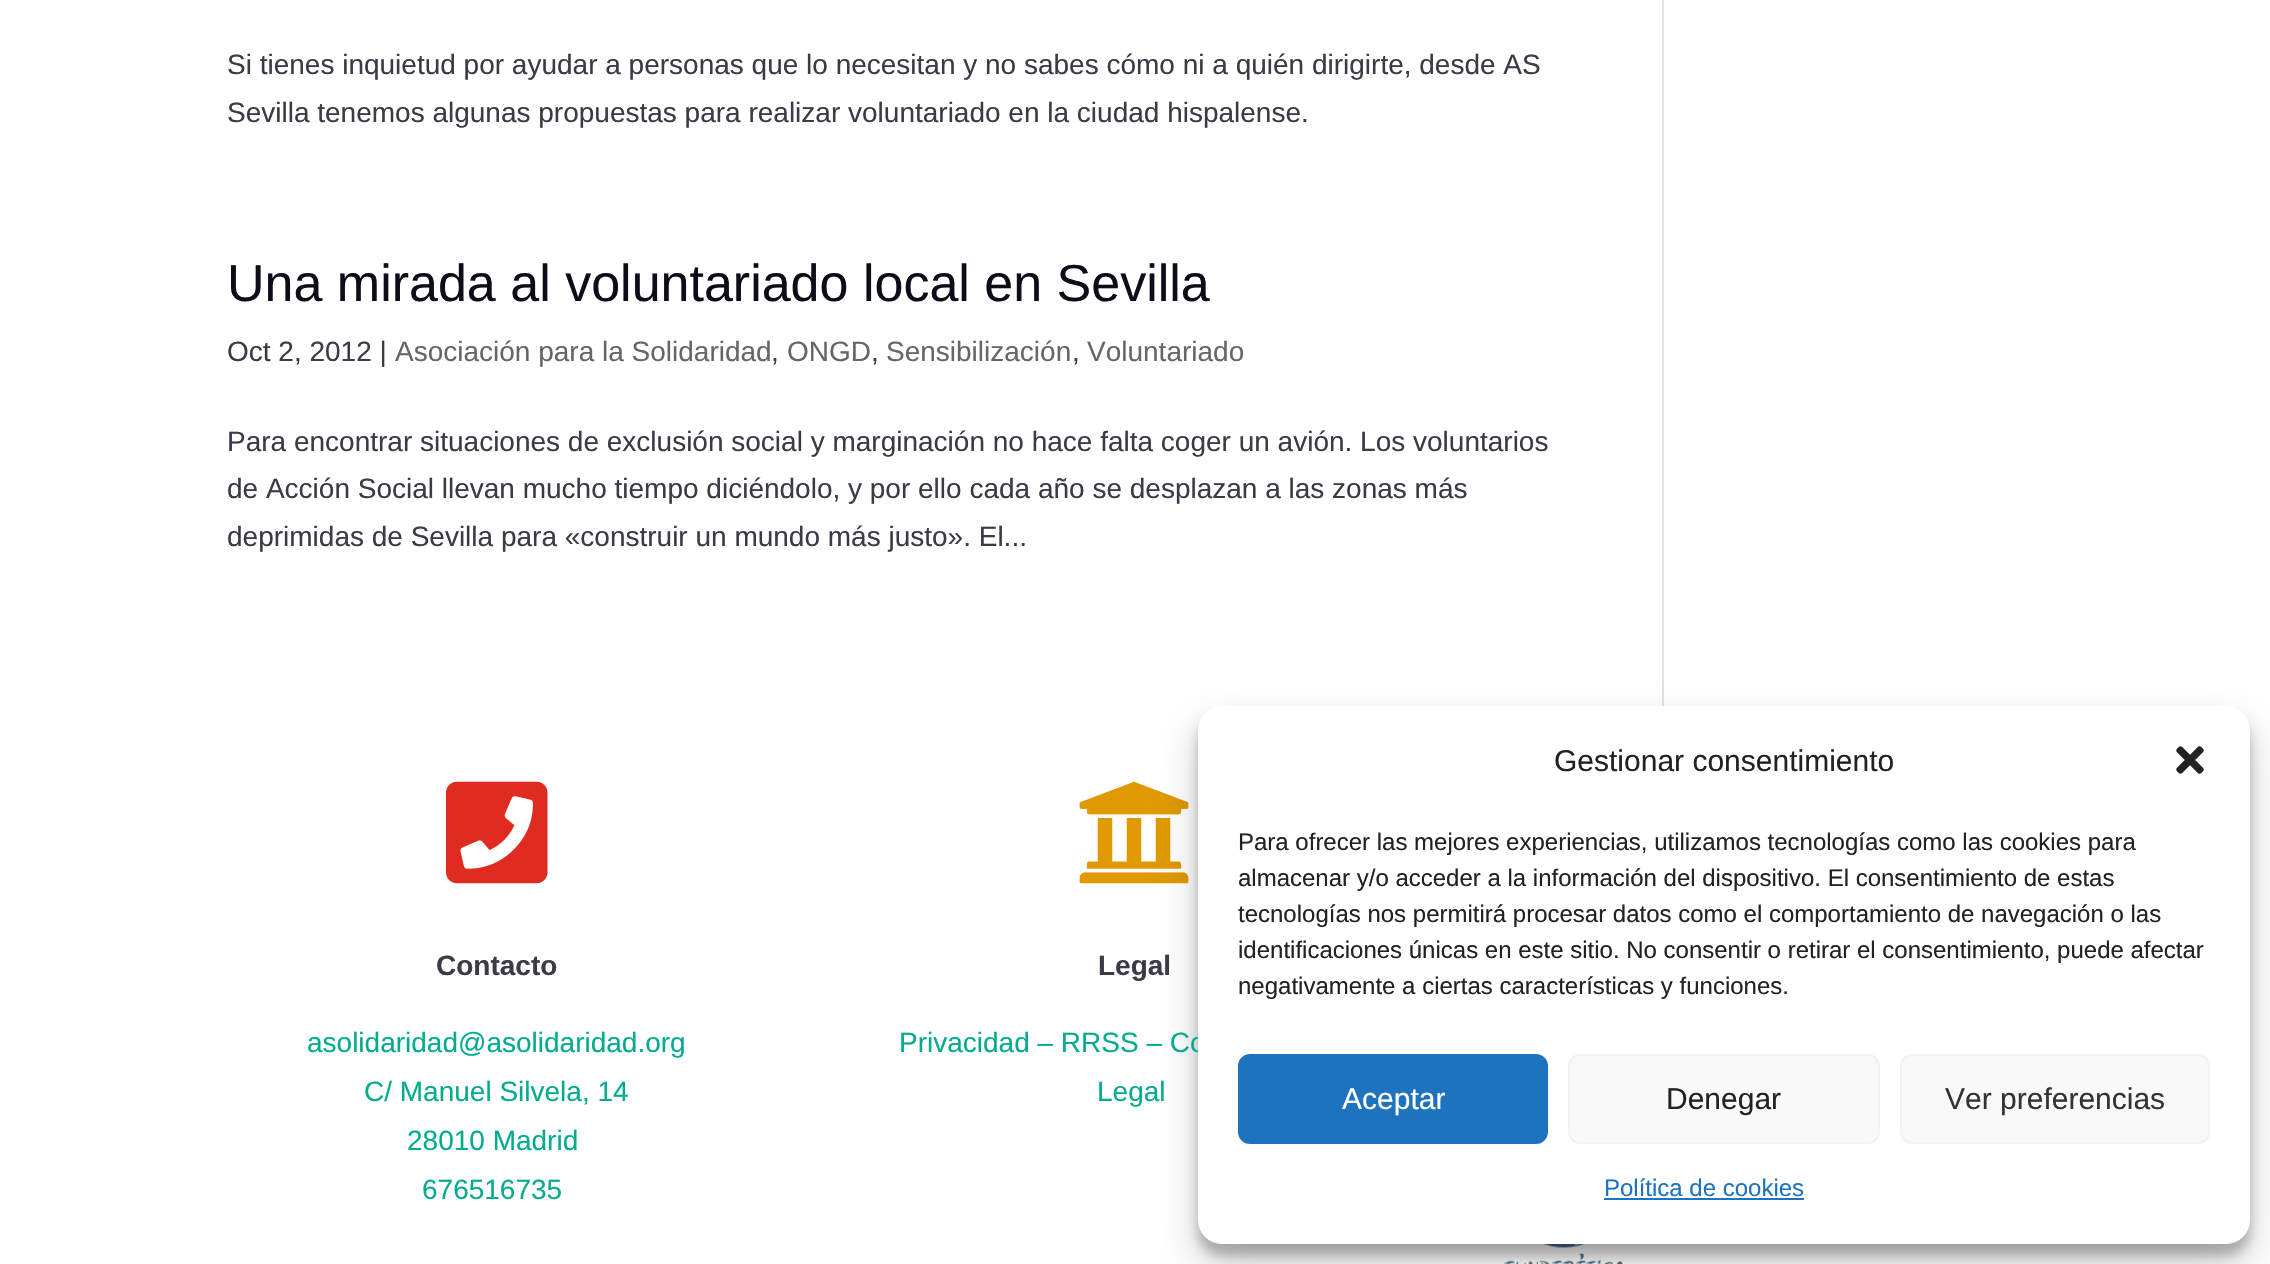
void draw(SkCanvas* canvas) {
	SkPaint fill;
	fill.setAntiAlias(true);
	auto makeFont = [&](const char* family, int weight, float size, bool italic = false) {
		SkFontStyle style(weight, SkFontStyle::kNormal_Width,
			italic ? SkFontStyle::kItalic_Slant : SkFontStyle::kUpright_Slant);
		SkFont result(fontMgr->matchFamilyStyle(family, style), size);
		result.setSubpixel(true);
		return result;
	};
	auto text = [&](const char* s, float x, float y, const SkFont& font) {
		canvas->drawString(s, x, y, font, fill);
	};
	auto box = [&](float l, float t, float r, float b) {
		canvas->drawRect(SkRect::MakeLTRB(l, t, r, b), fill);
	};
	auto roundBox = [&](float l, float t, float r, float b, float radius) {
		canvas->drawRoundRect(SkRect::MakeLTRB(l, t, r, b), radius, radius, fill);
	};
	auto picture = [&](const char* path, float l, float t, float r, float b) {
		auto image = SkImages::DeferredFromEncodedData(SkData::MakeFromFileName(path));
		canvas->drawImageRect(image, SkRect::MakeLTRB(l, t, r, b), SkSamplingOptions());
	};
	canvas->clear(0xFFFFFFFF);
	fill.setColor(0xFFE2E2E2);
	box(1662, 0, 1664, 706);
	picture("image0.png", 446, 781, 548, 884);
	picture("image1.png", 1079, 781, 1189, 884);
	picture("image2.png", 1504, 1244, 1623, 1264);
	fill.setColor(0x3B000000);
	fill.setMaskFilter(SkMaskFilter::MakeBlur(kNormal_SkBlurStyle, 6));
	canvas->drawRoundRect(SkRect::MakeLTRB(1198, 718, 2250, 1256), 24, 24, fill);
	fill.setMaskFilter(nullptr);
	fill.setColor(0x30000000);
	fill.setMaskFilter(SkMaskFilter::MakeBlur(kNormal_SkBlurStyle, 20));
	canvas->drawRoundRect(SkRect::MakeLTRB(1198, 726, 2250, 1264), 24, 24, fill);
	fill.setMaskFilter(nullptr);
	auto font1 = makeFont("Liberation Sans", 400, 28);
	fill.setColor(0xFF3C3A47);
	text("Si tienes inquietud por ayudar a personas que lo necesitan y no sabes cómo ni a quién dirigirte, desde AS", 227, 74, font1);
	text("Sevilla tenemos algunas propuestas para realizar voluntariado en la ciudad hispalense.", 227, 122, font1);
	auto font2 = makeFont("Liberation Sans", 400, 52);
	fill.setColor(0xFF0E0C19);
	text("Una mirada al voluntariado local en Sevilla", 227, 301, font2);
	fill.setColor(0xFF3C3A47);
	text("Oct 2, 2012 |", 227, 361, font1);
	fill.setColor(0xFF666666);
	text("Asociación para la Solidaridad", 395, 361, font1);
	fill.setColor(0xFF3C3A47);
	text(",", 771, 361, font1);
	fill.setColor(0xFF666666);
	text("ONGD", 787, 361, font1);
	fill.setColor(0xFF3C3A47);
	text(",", 871, 361, font1);
	fill.setColor(0xFF666666);
	text("Sensibilización", 886, 361, font1);
	fill.setColor(0xFF3C3A47);
	text(",", 1072, 361, font1);
	fill.setColor(0xFF666666);
	text("Voluntariado", 1087, 361, font1);
	fill.setColor(0xFF3C3A47);
	text("Para encontrar situaciones de exclusión social y marginación no hace falta coger un avión. Los voluntarios", 227, 451, font1);
	text("de Acción Social llevan mucho tiempo diciéndolo, y por ello cada año se desplazan a las zonas más", 227, 498, font1);
	text("deprimidas de Sevilla para «construir un mundo más justo». El...", 227, 546, font1);
	auto font3 = makeFont("Liberation Sans", 700, 28);
	text("Contacto", 436, 975, font3);
	fill.setColor(0xFF00AB8E);
	text("asolidaridad@asolidaridad.org", 307, 1052, font1);
	text("C/ Manuel Silvela, 14", 364, 1101, font1);
	text("28010 Madrid", 407, 1150, font1);
	text("676516735", 422, 1199, font1);
	fill.setColor(0xFF3C3A47);
	text("Legal", 1098, 975, font3);
	fill.setColor(0xFF00AB8E);
	text("Privacidad – RRSS – Co", 899, 1052, font1);
	text("Legal", 1097, 1101, font1);
	fill.setColor(0xFFFFFFFF);
	roundBox(1198, 706, 2250, 1244, 24);
	auto font4 = makeFont("Liberation Sans", 400, 30);
	fill.setColor(0xFF222222);
	text("Gestionar consentimiento", 1554, 771, font4);
	picture("image3.png", 2176, 746, 2204, 774);
	auto font5 = makeFont("Liberation Sans", 400, 24);
	text("Para ofrecer las mejores experiencias, utilizamos tecnologías como las cookies para", 1238, 850, font5);
	text("almacenar y/o acceder a la información del dispositivo. El consentimiento de estas", 1238, 886, font5);
	text("tecnologías nos permitirá procesar datos como el comportamiento de navegación o las", 1238, 922, font5);
	text("identificaciones únicas en este sitio. No consentir o retirar el consentimiento, puede afectar", 1238, 958, font5);
	text("negativamente a ciertas características y funciones.", 1238, 994, font5);
	fill.setColor(0xFF1E73BE);
	canvas->drawRoundRect(SkRect::MakeLTRB(1239, 1055, 1547, 1143), 11, 11, fill);
	fill.setStyle(SkPaint::kStroke_Style);
	fill.setStrokeWidth(2);
	canvas->drawRoundRect(SkRect::MakeLTRB(1239, 1055, 1547, 1143), 11, 11, fill);
	fill.setStyle(SkPaint::kFill_Style);
	fill.setColor(0xFFFFFFFF);
	text("Aceptar", 1342, 1109, font4);
	fill.setColor(0xFFF9F9F9);
	canvas->drawRoundRect(SkRect::MakeLTRB(1569, 1055, 1879, 1143), 11, 11, fill);
	fill.setStyle(SkPaint::kStroke_Style);
	fill.setColor(0xFFF2F2F2);
	canvas->drawRoundRect(SkRect::MakeLTRB(1569, 1055, 1879, 1143), 11, 11, fill);
	fill.setStyle(SkPaint::kFill_Style);
	fill.setColor(0xFF222222);
	text("Denegar", 1666, 1109, font4);
	fill.setColor(0xFFF9F9F9);
	canvas->drawRoundRect(SkRect::MakeLTRB(1901, 1055, 2209, 1143), 11, 11, fill);
	fill.setStyle(SkPaint::kStroke_Style);
	fill.setColor(0xFFF2F2F2);
	canvas->drawRoundRect(SkRect::MakeLTRB(1901, 1055, 2209, 1143), 11, 11, fill);
	fill.setStyle(SkPaint::kFill_Style);
	fill.setColor(0xFF333333);
	text("Ver preferencias", 1945, 1109, font4);
	fill.setColor(0xFF1E73BE);
	text("Política de cookies", 1604, 1196, font5);
	box(1604, 1198, 1804, 1200);
}
